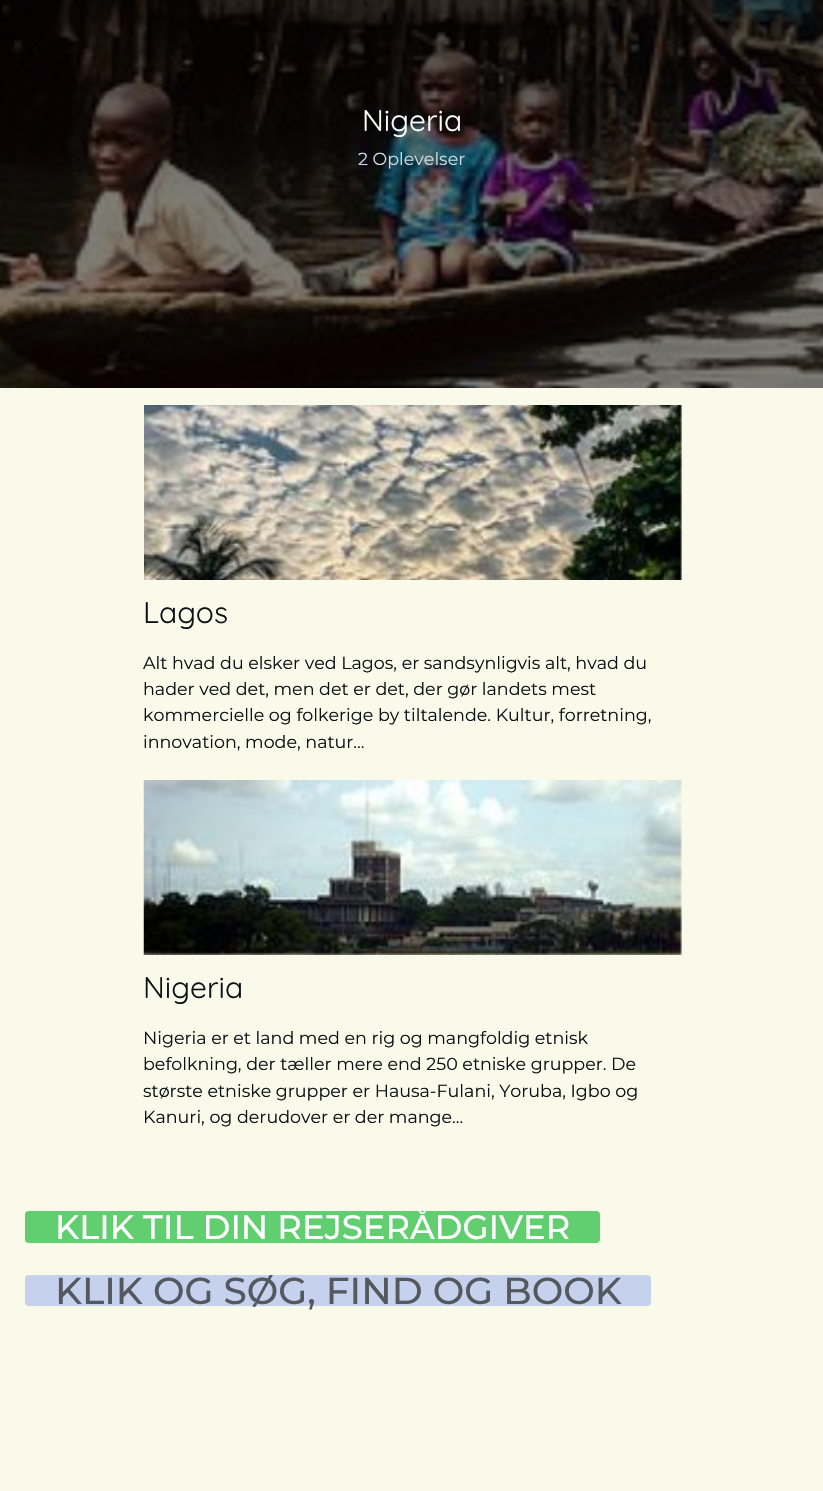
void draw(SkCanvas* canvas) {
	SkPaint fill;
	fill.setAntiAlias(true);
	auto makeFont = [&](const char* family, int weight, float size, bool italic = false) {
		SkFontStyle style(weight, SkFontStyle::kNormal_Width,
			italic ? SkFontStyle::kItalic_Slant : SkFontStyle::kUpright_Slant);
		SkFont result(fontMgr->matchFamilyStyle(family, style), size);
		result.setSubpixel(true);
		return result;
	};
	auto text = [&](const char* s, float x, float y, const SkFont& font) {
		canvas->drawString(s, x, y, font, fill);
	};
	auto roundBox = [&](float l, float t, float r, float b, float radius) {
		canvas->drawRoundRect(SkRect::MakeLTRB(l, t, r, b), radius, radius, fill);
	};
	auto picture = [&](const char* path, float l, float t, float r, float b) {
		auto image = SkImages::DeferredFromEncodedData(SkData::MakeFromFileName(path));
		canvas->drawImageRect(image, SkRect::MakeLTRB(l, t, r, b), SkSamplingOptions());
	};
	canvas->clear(0xFFFAFAEB);
	picture("image0.png", 0, 0, 823, 388);
	picture("image1.png", 144, 405, 682, 580);
	picture("image2.png", 143, 780, 682, 955);
	fill.setColor(0xFF61CE70);
	roundBox(25, 1211, 600, 1243, 4);
	fill.setColor(0xFFC6D1EE);
	roundBox(25, 1275, 651, 1306, 4);
	auto font1 = makeFont("Quicksand", 300, 30);
	fill.setColor(0xFFFFFFFF);
	text("Nigeria", 362, 131, font1);
	auto font2 = makeFont("Montserrat", 400, 17.5f);
	fill.setColor(0xFFD1D8DB);
	text("2 Oplevelser", 358, 165, font2);
	fill.setColor(0xFF0B1215);
	text("Lagos", 143, 623, font1);
	text("Alt hvad du elsker ved Lagos, er sandsynligvis alt, hvad du", 143, 669, font2);
	text("hader ved det, men det er det, der gør landets mest", 143, 695, font2);
	text("kommercielle og folkerige by tiltalende. Kultur, forretning,", 143, 721, font2);
	text("innovation, mode, natur...", 143, 748, font2);
	text("Nigeria", 143, 998, font1);
	text("Nigeria er et land med en rig og mangfoldig etnisk", 143, 1044, font2);
	text("befolkning, der tæller mere end 250 etniske grupper. De", 143, 1070, font2);
	text("største etniske grupper er Hausa-Fulani, Yoruba, Igbo og", 143, 1097, font2);
	text("Kanuri, og derudover er der mange...", 143, 1123, font2);
	auto font3 = makeFont("Montserrat", 500, 33.75f);
	fill.setColor(0xFFFFFFFF);
	text("KLIK TIL DIN REJSERÅDGIVER", 55, 1239, font3);
	auto font4 = makeFont("Montserrat", 500, 37.5f);
	fill.setColor(0xFF54595F);
	text("KLIK OG SØG, FIND OG BOOK", 55, 1304, font4);
}
